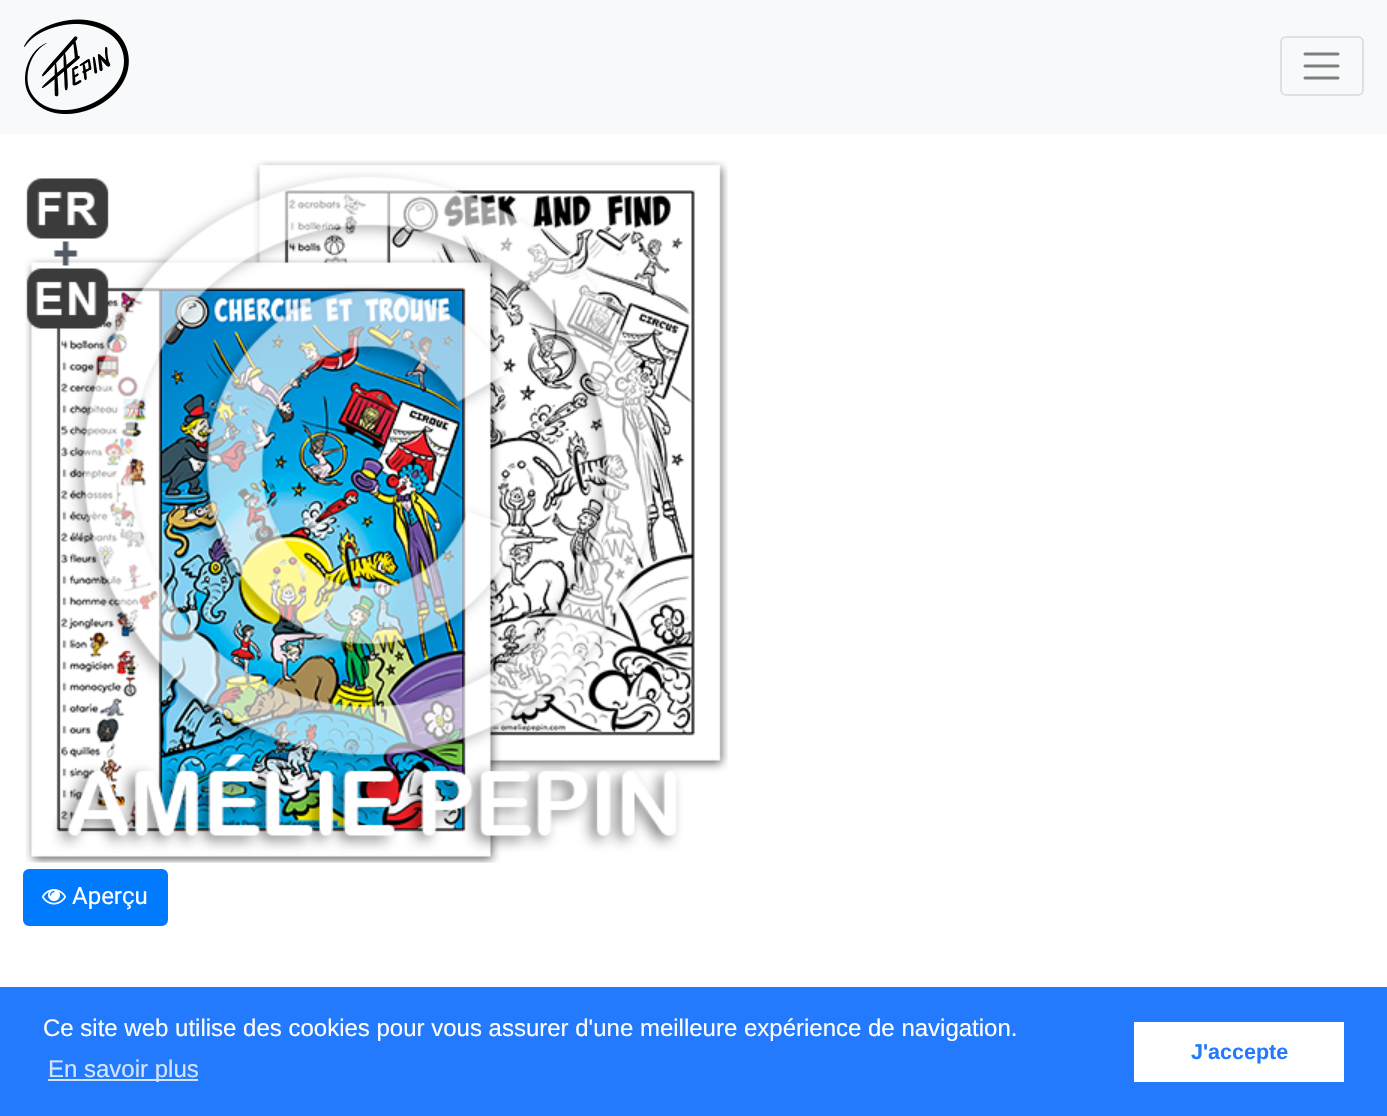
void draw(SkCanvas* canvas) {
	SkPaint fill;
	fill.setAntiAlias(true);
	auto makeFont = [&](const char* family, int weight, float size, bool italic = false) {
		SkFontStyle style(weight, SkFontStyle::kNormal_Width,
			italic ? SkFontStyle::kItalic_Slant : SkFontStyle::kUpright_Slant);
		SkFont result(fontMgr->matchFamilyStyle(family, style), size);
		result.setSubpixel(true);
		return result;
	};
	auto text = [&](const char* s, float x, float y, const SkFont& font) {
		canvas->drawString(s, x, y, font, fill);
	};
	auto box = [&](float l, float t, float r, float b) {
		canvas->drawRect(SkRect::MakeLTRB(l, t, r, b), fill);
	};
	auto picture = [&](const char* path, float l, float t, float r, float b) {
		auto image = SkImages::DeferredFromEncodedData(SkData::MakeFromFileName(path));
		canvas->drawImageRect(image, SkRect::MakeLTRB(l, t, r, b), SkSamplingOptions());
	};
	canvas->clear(0xFFFFFFFF);
	fill.setColor(0xFFF8F9FA);
	box(0, 0, 1387, 134);
	picture("image0.png", 24, 19, 129, 114);
	fill.setStyle(SkPaint::kStroke_Style);
	fill.setStrokeWidth(2);
	fill.setColor(0xFFDFE0E1);
	canvas->drawRoundRect(SkRect::MakeLTRB(1281, 37, 1363, 95), 5, 5, fill);
	fill.setStrokeWidth(3);
	fill.setStrokeCap(SkPaint::kRound_Cap);
	fill.setColor(0xFF7C7D7D);
	canvas->drawPath(SkPathBuilder().moveTo(1305, 54).lineTo(1338, 54).moveTo(1305, 66).lineTo(1338, 66).moveTo(1305, 78).lineTo(1338, 78).detach(), fill);
	picture("image1.png", 25, 160, 728, 863);
	fill.setStyle(SkPaint::kFill_Style);
	fill.setColor(0xFF007BFF);
	canvas->drawRoundRect(SkRect::MakeLTRB(24, 870, 167, 925), 5, 5, fill);
	fill.setStyle(SkPaint::kStroke_Style);
	fill.setStrokeWidth(2);
	fill.setStrokeCap(SkPaint::kButt_Cap);
	canvas->drawRoundRect(SkRect::MakeLTRB(24, 870, 167, 925), 5, 5, fill);
	picture("image2.png", 42, 889, 66, 905);
	fill.setStyle(SkPaint::kFill_Style);
	fill.setColor(0xFF237AFC);
	box(0, 987, 1387, 1116);
	fill.setColor(0xFFD3E4FE);
	box(48, 1079, 198, 1081);
	fill.setColor(0xFFFFFFFF);
	box(1134, 1022, 1344, 1082);
	auto font1 = makeFont("Roboto", 400, 24);
	text("Aperçu", 72, 904, font1);
	auto font2 = makeFont("Liberation Sans", 400, 24);
	text("Ce site web utilise des cookies pour vous assurer d'une meilleure expérience de navigation.", 43, 1036, font2);
	fill.setColor(0xFFD3E4FE);
	text("En savoir plus", 48, 1077, font2);
	auto font3 = makeFont("Liberation Sans", 700, 21.5f);
	fill.setColor(0xFF237AFC);
	text("J'accepte", 1191, 1059, font3);
}
